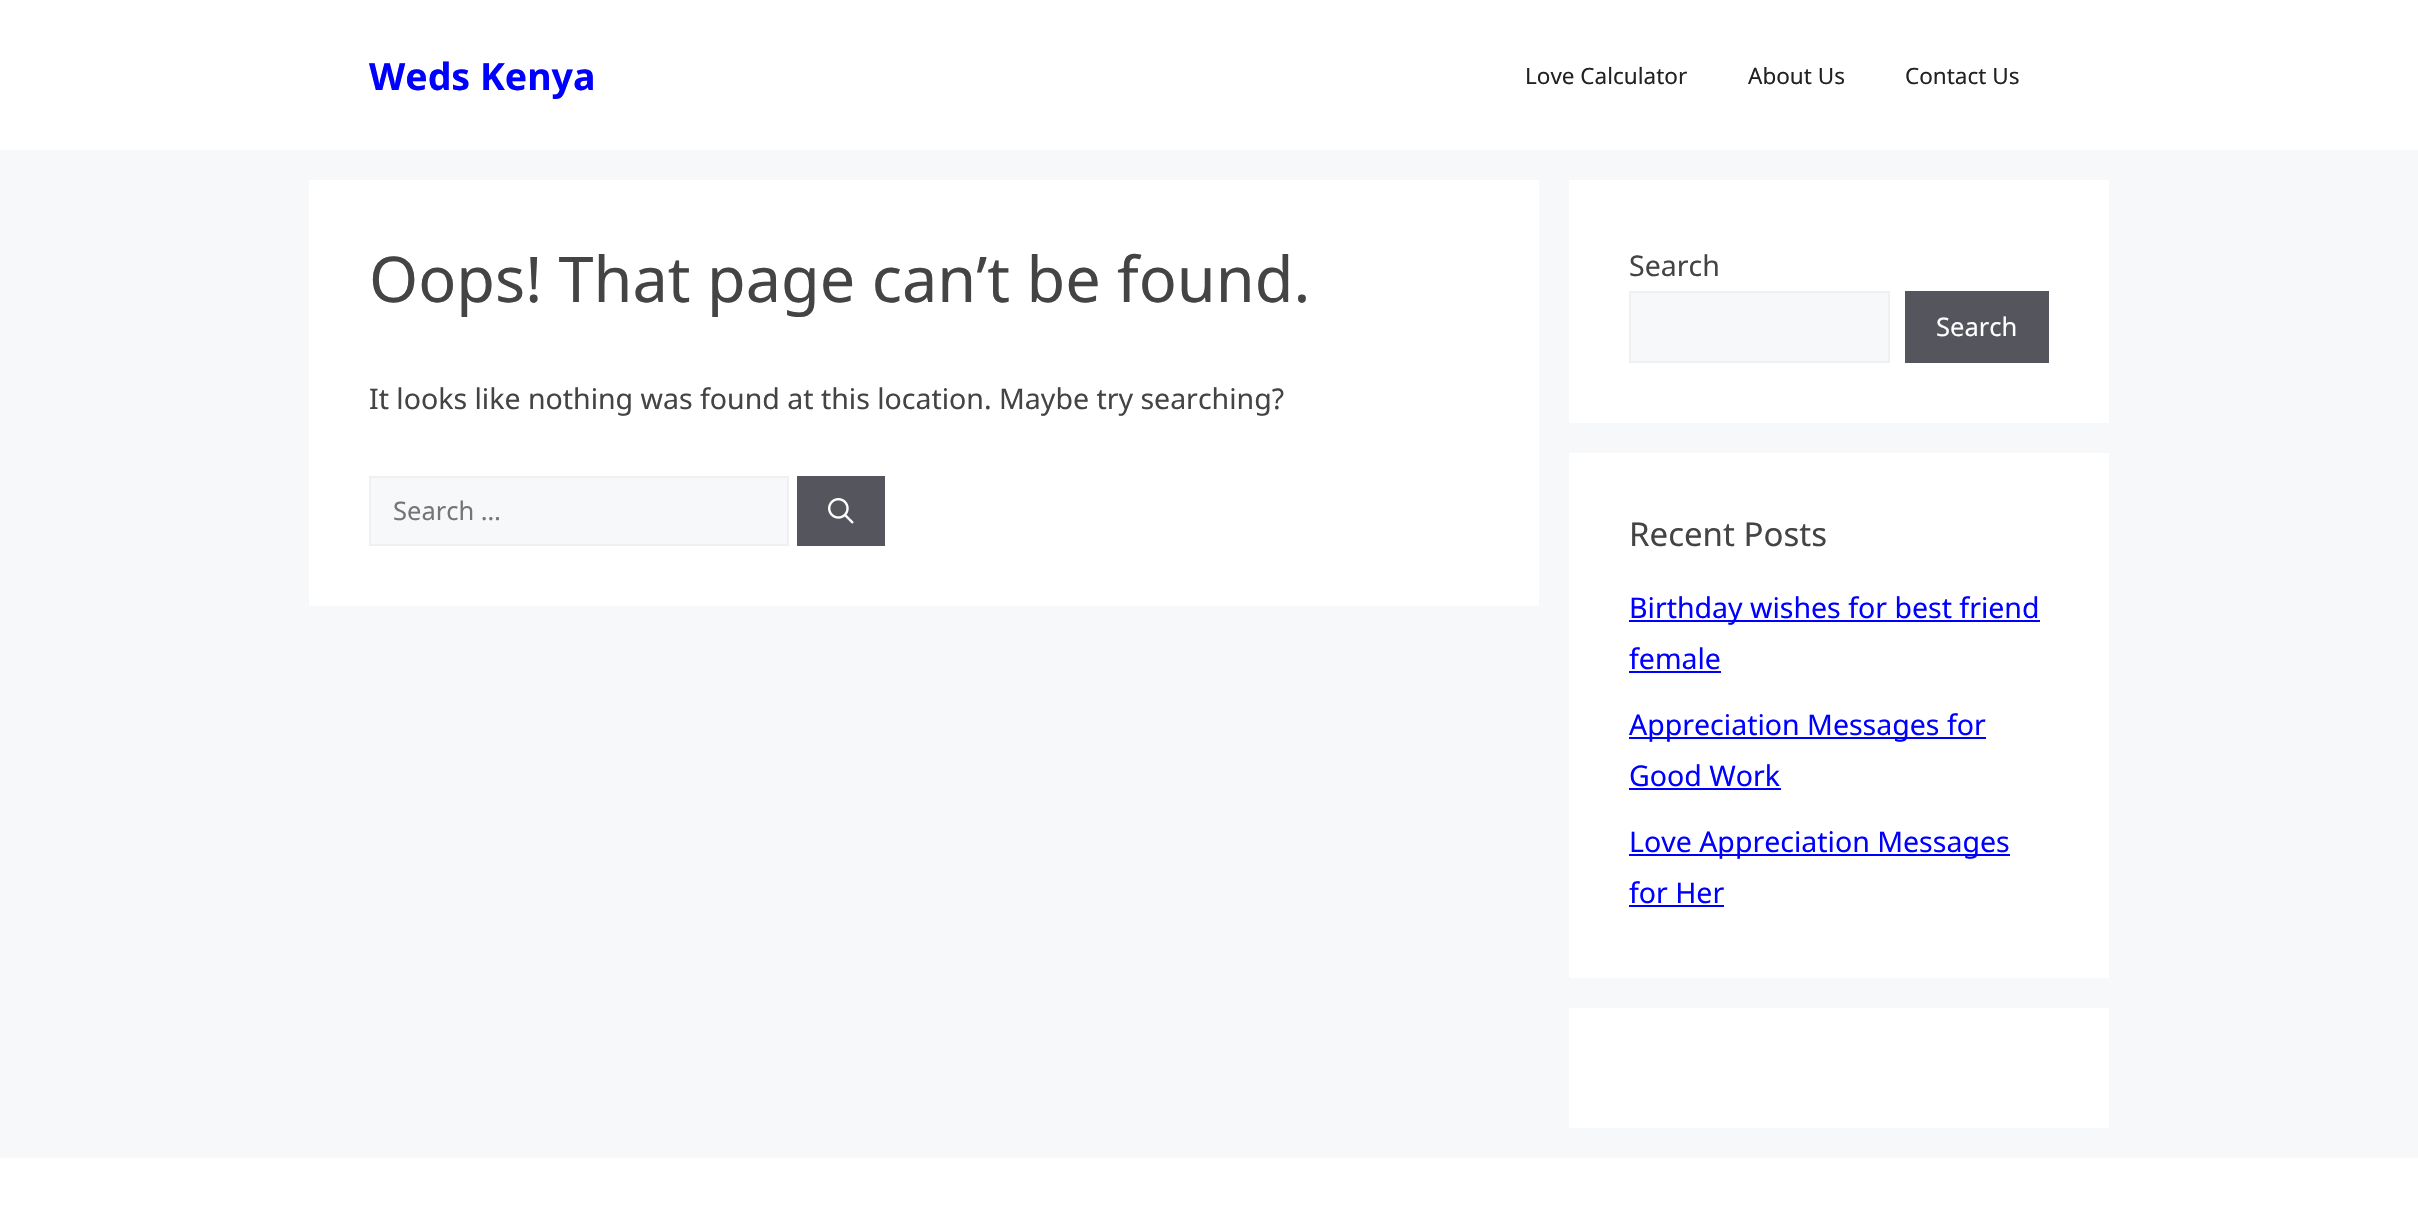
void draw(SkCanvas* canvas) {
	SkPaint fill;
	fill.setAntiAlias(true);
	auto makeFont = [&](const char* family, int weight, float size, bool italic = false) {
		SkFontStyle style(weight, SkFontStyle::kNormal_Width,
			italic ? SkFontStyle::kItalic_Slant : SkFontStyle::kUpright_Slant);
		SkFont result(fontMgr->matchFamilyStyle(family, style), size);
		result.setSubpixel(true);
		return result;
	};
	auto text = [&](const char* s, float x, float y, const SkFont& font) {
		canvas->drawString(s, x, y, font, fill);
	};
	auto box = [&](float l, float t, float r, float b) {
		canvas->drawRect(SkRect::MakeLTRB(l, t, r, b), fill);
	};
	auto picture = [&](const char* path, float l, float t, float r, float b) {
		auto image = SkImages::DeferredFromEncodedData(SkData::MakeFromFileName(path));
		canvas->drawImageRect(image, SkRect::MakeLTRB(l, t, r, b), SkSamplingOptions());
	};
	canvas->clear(0xFFF7F8F9);
	fill.setColor(0xFFFFFFFF);
	box(0, 0, 2418, 150);
	box(309, 180, 1539, 606);
	fill.setColor(0xFFF7F8F9);
	canvas->drawRect(SkRect::MakeLTRB(370, 477, 788, 545), fill);
	fill.setStyle(SkPaint::kStroke_Style);
	fill.setStrokeWidth(2);
	fill.setColor(0xFFF0F0F0);
	canvas->drawRect(SkRect::MakeLTRB(370, 477, 788, 545), fill);
	fill.setStyle(SkPaint::kFill_Style);
	fill.setColor(0xFF55555E);
	box(797, 476, 885, 546);
	picture("image0.png", 828, 498, 854, 524);
	fill.setColor(0xFFFFFFFF);
	box(1569, 180, 2109, 423);
	fill.setColor(0xFFF7F8F9);
	canvas->drawRect(SkRect::MakeLTRB(1630, 292, 1889, 362), fill);
	fill.setStyle(SkPaint::kStroke_Style);
	fill.setColor(0xFFF0F0F0);
	canvas->drawRect(SkRect::MakeLTRB(1630, 292, 1889, 362), fill);
	fill.setStyle(SkPaint::kFill_Style);
	fill.setColor(0xFF55555E);
	box(1905, 291, 2049, 363);
	fill.setColor(0xFFFFFFFF);
	box(1569, 453, 2109, 978);
	fill.setColor(0xFF0000FF);
	box(1629, 620, 2040, 622);
	box(1629, 671, 1721, 673);
	box(1629, 737, 1986, 739);
	box(1629, 788, 1781, 790);
	box(1629, 854, 2010, 856);
	box(1629, 905, 1724, 907);
	fill.setColor(0xFFFFFFFF);
	box(1569, 1008, 2109, 1128);
	box(0, 1158, 2418, 1209);
	auto font1 = makeFont("Noto Sans", 700, 37.5f);
	fill.setColor(0xFF0000FF);
	text("Weds Kenya", 369, 90, font1);
	auto font2 = makeFont("Noto Sans", 400, 22.5f);
	fill.setColor(0xFF222222);
	text("Love Calculator", 1525, 84, font2);
	text("About Us", 1748, 84, font2);
	text("Contact Us", 1905, 84, font2);
	auto font3 = makeFont("Noto Sans", 400, 63);
	fill.setColor(0xFF444444);
	text("Oops! That page can’t be found.", 369, 302, font3);
	auto font4 = makeFont("Noto Sans", 400, 28.5f);
	text("It looks like nothing was found at this location. Maybe try searching?", 369, 409, font4);
	auto font5 = makeFont("Noto Sans", 400, 25.5f);
	fill.setColor(0xFF757575);
	text("Search …", 393, 520, font5);
	fill.setColor(0xFF444444);
	text("Search", 1629, 276, font4);
	fill.setColor(0xFFFFFFFF);
	text("Search", 1936, 336, font5);
	auto font6 = makeFont("Noto Sans", 400, 33);
	fill.setColor(0xFF444444);
	text("Recent Posts", 1629, 546, font6);
	fill.setColor(0xFF0000FF);
	text("Birthday wishes for best friend", 1629, 618, font4);
	text("female", 1629, 669, font4);
	text("Appreciation Messages for", 1629, 735, font4);
	text("Good Work", 1629, 786, font4);
	text("Love Appreciation Messages", 1629, 852, font4);
	text("for Her", 1629, 903, font4);
}
